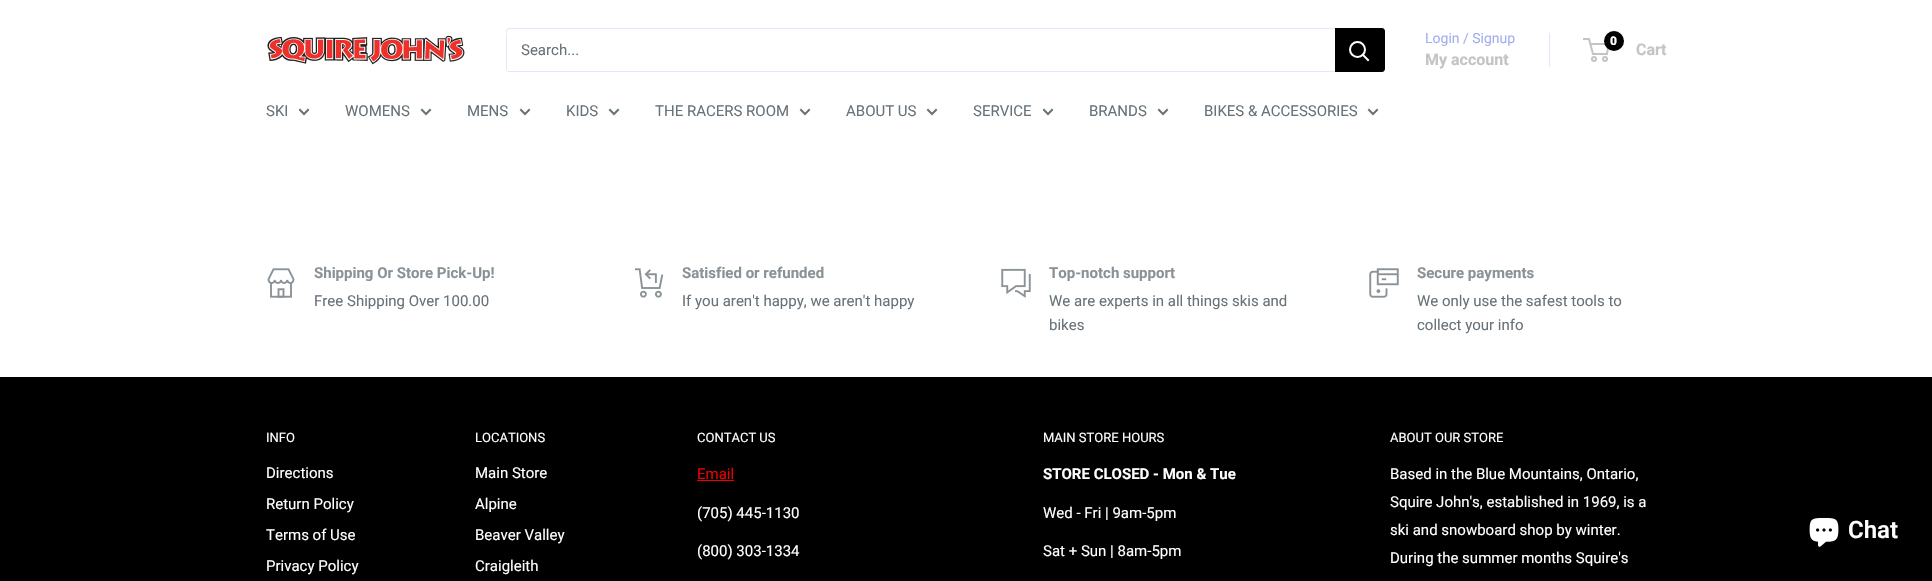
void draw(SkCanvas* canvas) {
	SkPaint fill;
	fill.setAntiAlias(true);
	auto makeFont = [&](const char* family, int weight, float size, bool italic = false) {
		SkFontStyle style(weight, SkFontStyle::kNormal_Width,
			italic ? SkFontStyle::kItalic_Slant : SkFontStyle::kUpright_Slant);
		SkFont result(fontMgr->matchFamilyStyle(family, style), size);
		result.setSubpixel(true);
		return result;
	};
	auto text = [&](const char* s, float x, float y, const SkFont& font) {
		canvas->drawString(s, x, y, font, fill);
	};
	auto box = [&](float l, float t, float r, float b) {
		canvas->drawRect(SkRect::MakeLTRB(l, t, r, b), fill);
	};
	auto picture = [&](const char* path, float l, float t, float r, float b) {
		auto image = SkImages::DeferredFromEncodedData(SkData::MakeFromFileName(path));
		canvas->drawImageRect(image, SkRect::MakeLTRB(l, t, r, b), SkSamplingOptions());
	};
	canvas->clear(0xFFFFFFFF);
	picture("image0.png", 267, 35, 465, 65);
	fill.setColor(0xFFE3E7FA);
	canvas->drawPath(SkPathBuilder().moveTo(507, 71).cubicTo(507, 72, 508, 72, 509, 72).lineTo(1382, 72).cubicTo(1384, 72, 1385, 71, 1385, 69).lineTo(1385, 31).cubicTo(1385, 30, 1385, 29, 1384, 29).lineTo(1384, 62).cubicTo(1384, 64, 1386, 71, 1381, 71).close().detach(), fill);
	canvas->drawPath(SkPathBuilder().moveTo(510, 29).lineTo(1384, 29).cubicTo(1384, 28, 1383, 28, 1382, 28).lineTo(509, 28).cubicTo(507, 28, 506, 29, 506, 31).lineTo(506, 69).cubicTo(506, 70, 506, 71, 507, 71).lineTo(507, 38).cubicTo(507, 36, 505, 29, 510, 29).close().detach(), fill);
	fill.setColor(0xFF000000);
	canvas->drawPath(SkPathBuilder().moveTo(1335, 28).lineTo(1382, 28).cubicTo(1383.5f, 28, 1385, 29.5f, 1385, 31).lineTo(1385, 69).cubicTo(1385, 70.5f, 1383.5f, 72, 1382, 72).lineTo(1335, 72).close().detach(), fill);
	fill.setStyle(SkPaint::kStroke_Style);
	fill.setStrokeWidth(2);
	fill.setStrokeCap(SkPaint::kSquare_Cap);
	fill.setColor(0xFFFFFFFF);
	canvas->drawPath(SkPathBuilder().moveTo(1368, 60).lineTo(1363, 55).detach(), fill);
	fill.setStrokeCap(SkPaint::kButt_Cap);
	canvas->drawCircle(1357.5f, 49.5f, 7.5f, fill);
	fill.setStyle(SkPaint::kFill_Style);
	fill.setColor(0xFFE3E7FA);
	box(1549, 33, 1550, 67);
	fill.setStyle(SkPaint::kStroke_Style);
	fill.setColor(0xFFC4C4C4);
	canvas->drawCircle(1594, 59, 2, fill);
	canvas->drawCircle(1605, 59, 2, fill);
	canvas->drawPath(SkPathBuilder().moveTo(1590.5f, 44).lineTo(1608.5f, 44).lineTo(1607, 54).lineTo(1593, 54).lineTo(1589, 39).lineTo(1583, 39).detach(), fill);
	fill.setStyle(SkPaint::kFill_Style);
	fill.setColor(0xFF000000);
	canvas->drawCircle(1614, 41, 10, fill);
	fill.setStyle(SkPaint::kStroke_Style);
	fill.setStrokeCap(SkPaint::kSquare_Cap);
	fill.setColor(0xFF677279);
	canvas->drawPath(SkPathBuilder().moveTo(308, 110).lineTo(304, 114).lineTo(300, 110).detach(), fill);
	canvas->drawPath(SkPathBuilder().moveTo(430, 110).lineTo(426, 114).lineTo(422, 110).detach(), fill);
	canvas->drawPath(SkPathBuilder().moveTo(529, 110).lineTo(525, 114).lineTo(521, 110).detach(), fill);
	canvas->drawPath(SkPathBuilder().moveTo(618, 110).lineTo(614, 114).lineTo(610, 110).detach(), fill);
	canvas->drawPath(SkPathBuilder().moveTo(809, 110).lineTo(805, 114).lineTo(801, 110).detach(), fill);
	canvas->drawPath(SkPathBuilder().moveTo(936, 110).lineTo(932, 114).lineTo(928, 110).detach(), fill);
	canvas->drawPath(SkPathBuilder().moveTo(1052, 110).lineTo(1048, 114).lineTo(1044, 110).detach(), fill);
	canvas->drawPath(SkPathBuilder().moveTo(1167, 110).lineTo(1163, 114).lineTo(1159, 110).detach(), fill);
	canvas->drawPath(SkPathBuilder().moveTo(1377, 110).lineTo(1373, 114).lineTo(1369, 110).detach(), fill);
	picture("image1.png", 267, 268, 295, 298);
	picture("image2.png", 634, 268, 664, 298);
	picture("image3.png", 1001, 268, 1031, 298);
	picture("image4.png", 1369, 268, 1399, 298);
	fill.setStyle(SkPaint::kFill_Style);
	fill.setColor(0xFF000000);
	box(0, 377, 1932, 581);
	fill.setColor(0xFFEE0000);
	box(697, 480, 734, 481);
	picture("image5.png", 1809, 518, 1839, 547);
	auto font1 = makeFont("Roboto", 400, 15);
	fill.setColor(0xFF677279);
	text("Search...", 521, 55, font1);
	auto font2 = makeFont("Roboto", 400, 14);
	fill.setColor(0xFFA3AFEF);
	text("Login / Signup", 1425, 43, font2);
	auto font3 = makeFont("Roboto", 700, 16);
	fill.setColor(0xFFC4C4C4);
	text("My account", 1425, 65, font3);
	auto font4 = makeFont("Roboto", 900, 12);
	fill.setColor(0xFFFFFFFF);
	text("0", 1610, 45, font4);
	fill.setColor(0xFFC4C4C4);
	text("Cart", 1636, 55, font3);
	fill.setColor(0xFF677279);
	text("SKI", 266, 116, font1);
	text("WOMENS", 345, 116, font1);
	text("MENS", 467, 116, font1);
	text("KIDS", 566, 116, font1);
	text("THE RACERS ROOM", 655, 116, font1);
	text("ABOUT US", 846, 116, font1);
	text("SERVICE", 973, 116, font1);
	text("BRANDS", 1089, 116, font1);
	text("BIKES & ACCESSORIES", 1204, 116, font1);
	auto font5 = makeFont("Roboto", 700, 15);
	fill.setColor(0xFF8A9297);
	text("Shipping Or Store Pick-Up!", 314, 278, font5);
	fill.setColor(0xFF677279);
	text("Free Shipping Over 100.00", 314, 306, font1);
	fill.setColor(0xFF8A9297);
	text("Satisfied or refunded", 682, 278, font5);
	fill.setColor(0xFF677279);
	text("If you aren't happy, we aren't happy", 682, 306, font1);
	fill.setColor(0xFF8A9297);
	text("Top-notch support", 1049, 278, font5);
	fill.setColor(0xFF677279);
	text("We are experts in all things skis and", 1049, 306, font1);
	text("bikes", 1049, 330, font1);
	fill.setColor(0xFF8A9297);
	text("Secure payments", 1417, 278, font5);
	fill.setColor(0xFF677279);
	text("We only use the safest tools to", 1417, 306, font1);
	text("collect your info", 1417, 330, font1);
	auto font6 = makeFont("Roboto", 400, 13);
	fill.setColor(0xFFFFFFFF);
	text("INFO", 266, 442, font6);
	text("Directions", 266, 478, font1);
	text("Return Policy", 266, 509, font1);
	text("Terms of Use", 266, 540, font1);
	text("Privacy Policy", 266, 571, font1);
	text("LOCATIONS", 475, 442, font6);
	text("Main Store", 475, 478, font1);
	text("Alpine", 475, 509, font1);
	text("Beaver Valley", 475, 540, font1);
	text("Craigleith", 475, 571, font1);
	text("CONTACT US", 697, 442, font6);
	fill.setColor(0xFFEE0000);
	text("Email", 697, 479, font1);
	fill.setColor(0xFFFFFFFF);
	text("(705) 445-1130", 697, 518, font1);
	text("(800) 303-1334", 697, 556, font1);
	text("MAIN STORE HOURS", 1043, 442, font6);
	text("STORE CLOSED - Mon & Tue", 1043, 479, font5);
	text("Wed - Fri | 9am-5pm", 1043, 518, font1);
	text("Sat + Sun | 8am-5pm", 1043, 556, font1);
	text("ABOUT OUR STORE", 1390, 442, font6);
	text("Based in the Blue Mountains, Ontario,", 1390, 479, font1);
	text("Squire John's, established in 1969, is a", 1390, 507, font1);
	text("ski and snowboard shop by winter.", 1390, 535, font1);
	text("During the summer months Squire's", 1390, 563, font1);
	auto font7 = makeFont("Roboto", 600, 24);
	text("Chat", 1848, 538, font7);
}
